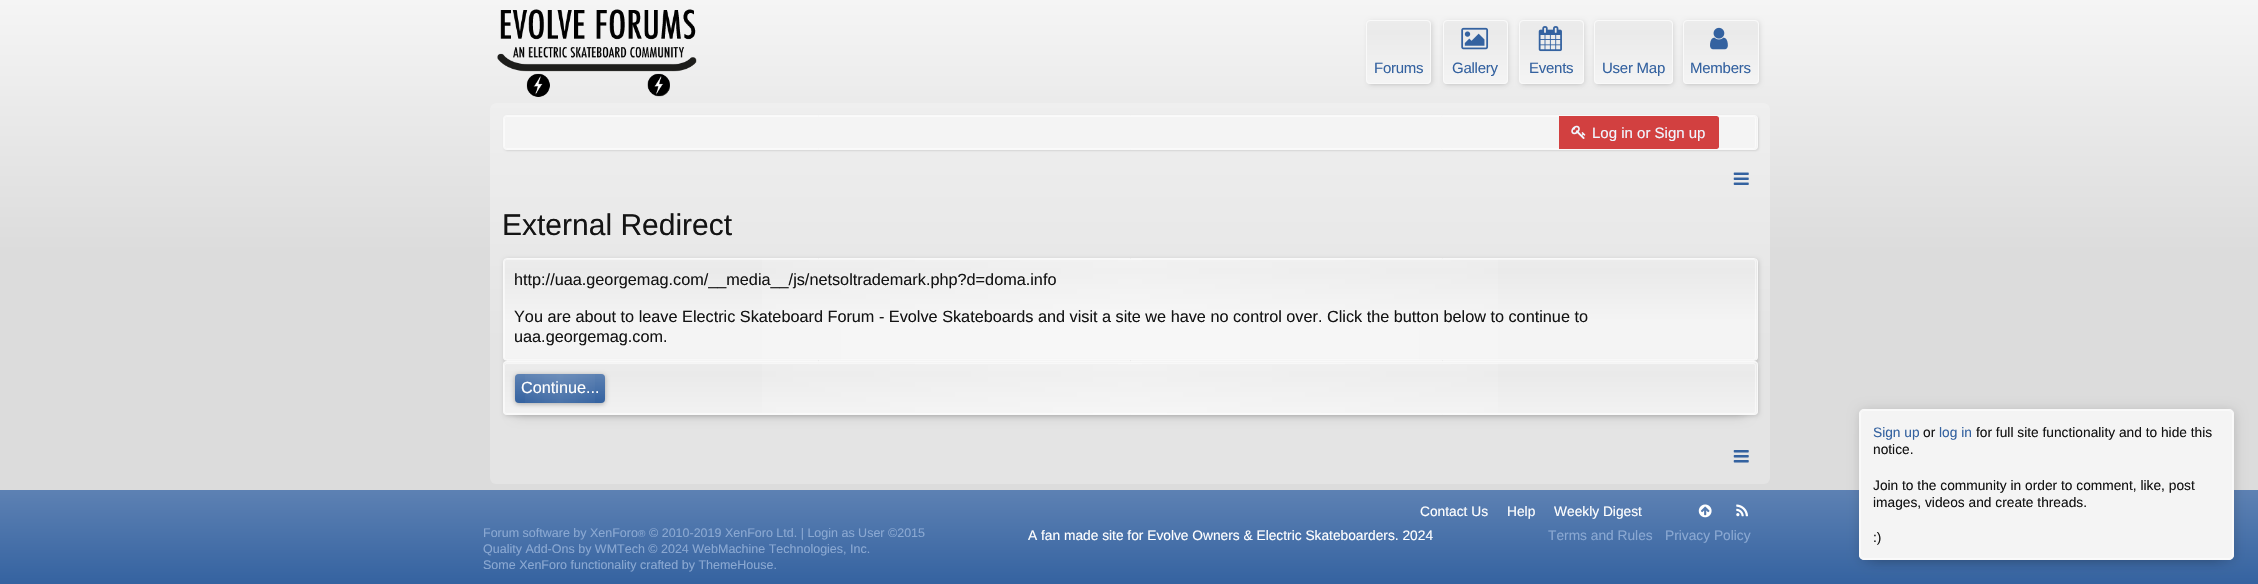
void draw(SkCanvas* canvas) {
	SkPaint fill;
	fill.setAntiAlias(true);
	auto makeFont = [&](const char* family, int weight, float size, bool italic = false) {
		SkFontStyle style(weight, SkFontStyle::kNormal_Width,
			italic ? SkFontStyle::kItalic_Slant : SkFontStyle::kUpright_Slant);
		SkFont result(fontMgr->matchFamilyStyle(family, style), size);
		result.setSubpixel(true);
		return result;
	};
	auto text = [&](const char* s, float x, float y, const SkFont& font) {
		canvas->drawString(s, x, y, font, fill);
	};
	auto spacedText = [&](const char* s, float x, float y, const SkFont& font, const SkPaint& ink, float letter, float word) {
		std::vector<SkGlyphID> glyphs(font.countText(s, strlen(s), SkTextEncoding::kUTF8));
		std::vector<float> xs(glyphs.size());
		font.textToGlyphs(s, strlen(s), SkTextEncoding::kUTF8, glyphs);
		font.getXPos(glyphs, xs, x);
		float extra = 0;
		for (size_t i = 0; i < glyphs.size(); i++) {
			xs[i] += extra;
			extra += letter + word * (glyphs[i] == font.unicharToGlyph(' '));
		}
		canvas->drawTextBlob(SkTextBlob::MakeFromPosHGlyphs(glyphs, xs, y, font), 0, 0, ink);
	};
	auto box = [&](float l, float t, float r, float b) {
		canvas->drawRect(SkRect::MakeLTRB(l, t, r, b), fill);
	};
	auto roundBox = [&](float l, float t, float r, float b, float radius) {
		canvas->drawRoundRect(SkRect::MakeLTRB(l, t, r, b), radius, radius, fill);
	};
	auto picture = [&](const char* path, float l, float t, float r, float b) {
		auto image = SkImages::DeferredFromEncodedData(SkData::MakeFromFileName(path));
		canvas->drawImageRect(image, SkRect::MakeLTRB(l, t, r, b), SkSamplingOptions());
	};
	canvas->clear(0xFFFFFFFF);
	{
		const SkColor colors[] = {0xFFF5F5F5, 0xFFDCDCDC};
		const float stops[] = {0, 0.43f};
		const SkPoint ends[] = {{1129, 0}, {1129, 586}};
		fill.setShader(SkGradientShader::MakeLinear(ends, colors, stops, 2, SkTileMode::kClamp));
		fill.setAlpha(255);
	}
	box(0, 0, 2258, 490);
	picture("image0.png", 497, 9, 697, 97);
	fill.setShader(nullptr);
	fill.setColor(0x1A000000);
	fill.setMaskFilter(SkMaskFilter::MakeBlur(kNormal_SkBlurStyle, 2));
	canvas->drawRect(SkRect::MakeLTRB(1370, 28, 1428, 84), fill);
	fill.setMaskFilter(nullptr);
	fill.setMaskFilter(SkMaskFilter::MakeBlur(kNormal_SkBlurStyle, 2));
	canvas->drawRoundRect(SkRect::MakeLTRB(1368, 21, 1433, 85), 4, 4, fill);
	fill.setMaskFilter(nullptr);
	{
		const SkColor colors[] = {0xFFECECEC, 0xFFEAEAEA, 0xFFF4F4F4};
		const float stops[] = {0, 0.2f, 0.98f};
		const SkPoint ends[] = {{1399, 20}, {1399, 84}};
		fill.setShader(SkGradientShader::MakeLinear(ends, colors, stops, 3, SkTileMode::kClamp));
		fill.setAlpha(255);
	}
	roundBox(1366, 20, 1431, 84, 4);
	fill.setStyle(SkPaint::kStroke_Style);
	fill.setStrokeWidth(1);
	fill.setShader(nullptr);
	fill.setColor(0x4DFFFFFF);
	canvas->drawRoundRect(SkRect::MakeLTRB(1366.5f, 20.5f, 1430.5f, 83.5f), 3.5f, 3.5f, fill);
	fill.setColor(0xFFF9F9F9);
	canvas->drawRoundRect(SkRect::MakeLTRB(1366.5f, 20.5f, 1430.5f, 83.5f), 3.5f, 3.5f, fill);
	fill.setStyle(SkPaint::kFill_Style);
	fill.setColor(0x1A000000);
	fill.setMaskFilter(SkMaskFilter::MakeBlur(kNormal_SkBlurStyle, 2));
	canvas->drawRect(SkRect::MakeLTRB(1446, 28, 1504, 84), fill);
	fill.setMaskFilter(nullptr);
	fill.setMaskFilter(SkMaskFilter::MakeBlur(kNormal_SkBlurStyle, 2));
	canvas->drawRoundRect(SkRect::MakeLTRB(1444, 21, 1509, 85), 4, 4, fill);
	fill.setMaskFilter(nullptr);
	{
		const SkColor colors[] = {0xFFECECEC, 0xFFEAEAEA, 0xFFF4F4F4};
		const float stops[] = {0, 0.2f, 0.98f};
		const SkPoint ends[] = {{1475, 20}, {1475, 84}};
		fill.setShader(SkGradientShader::MakeLinear(ends, colors, stops, 3, SkTileMode::kClamp));
		fill.setAlpha(255);
	}
	roundBox(1443, 20, 1508, 84, 4);
	fill.setStyle(SkPaint::kStroke_Style);
	fill.setShader(nullptr);
	fill.setColor(0x4DFFFFFF);
	canvas->drawRoundRect(SkRect::MakeLTRB(1443.5f, 20.5f, 1507.5f, 83.5f), 3.5f, 3.5f, fill);
	fill.setColor(0xFFF9F9F9);
	canvas->drawRoundRect(SkRect::MakeLTRB(1443.5f, 20.5f, 1507.5f, 83.5f), 3.5f, 3.5f, fill);
	picture("image1.png", 1461, 27, 1489, 50);
	fill.setStyle(SkPaint::kFill_Style);
	fill.setColor(0x1A000000);
	fill.setMaskFilter(SkMaskFilter::MakeBlur(kNormal_SkBlurStyle, 2));
	canvas->drawRect(SkRect::MakeLTRB(1523, 28, 1580, 84), fill);
	fill.setMaskFilter(nullptr);
	fill.setMaskFilter(SkMaskFilter::MakeBlur(kNormal_SkBlurStyle, 2));
	canvas->drawRoundRect(SkRect::MakeLTRB(1520, 21, 1585, 85), 4, 4, fill);
	fill.setMaskFilter(nullptr);
	{
		const SkColor colors[] = {0xFFECECEC, 0xFFEAEAEA, 0xFFF4F4F4};
		const float stops[] = {0, 0.2f, 0.98f};
		const SkPoint ends[] = {{1551, 20}, {1551, 84}};
		fill.setShader(SkGradientShader::MakeLinear(ends, colors, stops, 3, SkTileMode::kClamp));
		fill.setAlpha(255);
	}
	roundBox(1519, 20, 1584, 84, 4);
	fill.setStyle(SkPaint::kStroke_Style);
	fill.setShader(nullptr);
	fill.setColor(0x4DFFFFFF);
	canvas->drawRoundRect(SkRect::MakeLTRB(1519.5f, 20.5f, 1583.5f, 83.5f), 3.5f, 3.5f, fill);
	fill.setColor(0xFFF9F9F9);
	canvas->drawRoundRect(SkRect::MakeLTRB(1519.5f, 20.5f, 1583.5f, 83.5f), 3.5f, 3.5f, fill);
	picture("image2.png", 1538, 26, 1562, 52);
	fill.setStyle(SkPaint::kFill_Style);
	fill.setColor(0x1A000000);
	fill.setMaskFilter(SkMaskFilter::MakeBlur(kNormal_SkBlurStyle, 2));
	canvas->drawRect(SkRect::MakeLTRB(1598, 28, 1669, 84), fill);
	fill.setMaskFilter(nullptr);
	fill.setMaskFilter(SkMaskFilter::MakeBlur(kNormal_SkBlurStyle, 2));
	canvas->drawRoundRect(SkRect::MakeLTRB(1595, 21, 1674, 85), 4, 4, fill);
	fill.setMaskFilter(nullptr);
	{
		const SkColor colors[] = {0xFFECECEC, 0xFFEAEAEA, 0xFFF4F4F4};
		const float stops[] = {0, 0.2f, 0.98f};
		const SkPoint ends[] = {{1633, 20}, {1633, 84}};
		fill.setShader(SkGradientShader::MakeLinear(ends, colors, stops, 3, SkTileMode::kClamp));
		fill.setAlpha(255);
	}
	roundBox(1594, 20, 1673, 84, 4);
	fill.setStyle(SkPaint::kStroke_Style);
	fill.setShader(nullptr);
	fill.setColor(0x4DFFFFFF);
	canvas->drawRoundRect(SkRect::MakeLTRB(1594.5f, 20.5f, 1672.5f, 83.5f), 3.5f, 3.5f, fill);
	fill.setColor(0xFFF9F9F9);
	canvas->drawRoundRect(SkRect::MakeLTRB(1594.5f, 20.5f, 1672.5f, 83.5f), 3.5f, 3.5f, fill);
	fill.setStyle(SkPaint::kFill_Style);
	fill.setColor(0x1A000000);
	fill.setMaskFilter(SkMaskFilter::MakeBlur(kNormal_SkBlurStyle, 2));
	canvas->drawRect(SkRect::MakeLTRB(1686, 28, 1755, 84), fill);
	fill.setMaskFilter(nullptr);
	fill.setMaskFilter(SkMaskFilter::MakeBlur(kNormal_SkBlurStyle, 2));
	canvas->drawRoundRect(SkRect::MakeLTRB(1684, 21, 1760, 85), 4, 4, fill);
	fill.setMaskFilter(nullptr);
	{
		const SkColor colors[] = {0xFFECECEC, 0xFFEAEAEA, 0xFFF4F4F4};
		const float stops[] = {0, 0.2f, 0.98f};
		const SkPoint ends[] = {{1721, 20}, {1721, 84}};
		fill.setShader(SkGradientShader::MakeLinear(ends, colors, stops, 3, SkTileMode::kClamp));
		fill.setAlpha(255);
	}
	roundBox(1683, 20, 1759, 84, 4);
	fill.setStyle(SkPaint::kStroke_Style);
	fill.setShader(nullptr);
	fill.setColor(0x4DFFFFFF);
	canvas->drawRoundRect(SkRect::MakeLTRB(1683.5f, 20.5f, 1758.5f, 83.5f), 3.5f, 3.5f, fill);
	fill.setColor(0xFFF9F9F9);
	canvas->drawRoundRect(SkRect::MakeLTRB(1683.5f, 20.5f, 1758.5f, 83.5f), 3.5f, 3.5f, fill);
	picture("image3.png", 1710, 27, 1728, 50);
	fill.setStyle(SkPaint::kFill_Style);
	fill.setColor(0xFFE4E4E4);
	roundBox(490, 103, 1770, 484, 6);
	{
		const SkColor colors[] = {0x66FFFFFF, 0x00FFFFFF};
		const float stops[] = {0, 0.66f};
		const SkPoint ends[] = {{1130, 102}, {1130, 484}};
		fill.setShader(SkGradientShader::MakeLinear(ends, colors, stops, 2, SkTileMode::kClamp));
		fill.setAlpha(255);
	}
	roundBox(490, 103, 1770, 484, 6);
	fill.setShader(nullptr);
	fill.setColor(0x1A000000);
	fill.setMaskFilter(SkMaskFilter::MakeBlur(kNormal_SkBlurStyle, 1));
	canvas->drawRoundRect(SkRect::MakeLTRB(504, 116, 1759, 151), 4, 4, fill);
	fill.setMaskFilter(nullptr);
	fill.setColor(0xFFF4F4F4);
	roundBox(503, 115, 1758, 150, 4);
	fill.setStyle(SkPaint::kStroke_Style);
	fill.setColor(0xFFFAFAFA);
	canvas->drawRoundRect(SkRect::MakeLTRB(504.5f, 116.5f, 1755.5f, 148.5f), 2, 2, fill);
	fill.setColor(0xFFF9F9F9);
	canvas->drawRoundRect(SkRect::MakeLTRB(503.5f, 115.5f, 1757.5f, 149.5f), 3.5f, 3.5f, fill);
	fill.setStyle(SkPaint::kFill_Style);
	fill.setColor(0xFFD24040);
	canvas->drawPath(SkPathBuilder().moveTo(1559, 116).lineTo(1716.5f, 116).cubicTo(1718, 116, 1719, 117, 1719, 118.5f).lineTo(1719, 146.5f).cubicTo(1719, 148, 1718, 149, 1716.5f, 149).lineTo(1559, 149).close().detach(), fill);
	picture("image4.png", 1571, 125, 1586, 139);
	picture("image5.png", 1733, 172, 1749, 185);
	fill.setColor(0x26000000);
	fill.setMaskFilter(SkMaskFilter::MakeBlur(kNormal_SkBlurStyle, 2));
	canvas->drawRoundRect(SkRect::MakeLTRB(504, 259, 1759, 363), 4, 4, fill);
	fill.setMaskFilter(nullptr);
	canvas->save();
	canvas->clipPath(SkPathBuilder().moveTo(507, 258).lineTo(1754, 258).cubicTo(1756, 258, 1758, 260, 1758, 262).lineTo(1758, 357).cubicTo(1758, 359, 1756, 361, 1754, 361).lineTo(507, 361).cubicTo(505, 361, 503, 359, 503, 357).lineTo(503, 262).cubicTo(503, 260, 505, 258, 507, 258).close().detach(), true);
	{
		const SkColor colors[] = {0xFFECECEC, 0xFFEAEAEA, 0xFFF4F4F4};
		const float stops[] = {0, 0.12f, 0.62f};
		const SkPoint ends[] = {{1130, 259}, {1130, 360}};
		fill.setShader(SkGradientShader::MakeLinear(ends, colors, stops, 3, SkTileMode::kClamp));
		fill.setAlpha(255);
	}
	box(503, 259, 1758, 360);
	canvas->restore();
	{
		const SkColor colors[] = {0x00FFFFFF, 0x4DFFFFFF, 0x00FFFFFF};
		const float stops[] = {0, 0.5f, 1};
		const SkPoint ends[] = {{504, 309}, {1756, 309}};
		fill.setShader(SkGradientShader::MakeLinear(ends, colors, stops, 3, SkTileMode::kClamp));
		fill.setAlpha(255);
	}
	box(762, 259, 1498, 360);
	fill.setStyle(SkPaint::kStroke_Style);
	fill.setShader(nullptr);
	fill.setColor(0x80FFFFFF);
	canvas->drawRoundRect(SkRect::MakeLTRB(504.5f, 259.5f, 1755.5f, 359.5f), 2, 2, fill);
	fill.setColor(0xFFF9F9F9);
	canvas->drawRoundRect(SkRect::MakeLTRB(503.5f, 258.5f, 1757.5f, 360.5f), 3.5f, 3.5f, fill);
	fill.setStyle(SkPaint::kFill_Style);
	fill.setColor(0x33000000);
	fill.setMaskFilter(SkMaskFilter::MakeBlur(kNormal_SkBlurStyle, 6));
	canvas->drawRect(SkRect::MakeLTRB(515, 386, 1745, 415), fill);
	fill.setMaskFilter(nullptr);
	fill.setColor(0x26000000);
	fill.setMaskFilter(SkMaskFilter::MakeBlur(kNormal_SkBlurStyle, 2));
	canvas->drawRoundRect(SkRect::MakeLTRB(504, 363, 1759, 416), 4, 4, fill);
	fill.setMaskFilter(nullptr);
	fill.setColor(0xFFF4F4F4);
	roundBox(503, 361, 1758, 415, 4);
	canvas->save();
	canvas->clipPath(SkPathBuilder().moveTo(507, 361).lineTo(1754, 361).cubicTo(1756, 361, 1758, 363, 1758, 365).lineTo(1758, 411).cubicTo(1758, 413, 1756, 415, 1754, 415).lineTo(507, 415).cubicTo(505, 415, 503, 413, 503, 411).lineTo(503, 365).cubicTo(503, 363, 505, 361, 507, 361).close().detach(), true);
	{
		const SkColor colors[] = {0xFFECECEC, 0xFFEAEAEA, 0xFFF4F4F4};
		const float stops[] = {0, 0.2f, 1};
		const SkPoint ends[] = {{1130, 362}, {1130, 425}};
		fill.setShader(SkGradientShader::MakeLinear(ends, colors, stops, 3, SkTileMode::kClamp));
		fill.setAlpha(255);
	}
	box(503, 363, 1758, 414);
	canvas->restore();
	{
		const SkColor colors[] = {0x00FFFFFF, 0x4DFFFFFF, 0x00FFFFFF};
		const float stops[] = {0, 0.5f, 1};
		const SkPoint ends[] = {{504, 388}, {1756, 388}};
		fill.setShader(SkGradientShader::MakeLinear(ends, colors, stops, 3, SkTileMode::kClamp));
		fill.setAlpha(255);
	}
	box(762, 363, 1498, 414);
	fill.setStyle(SkPaint::kStroke_Style);
	fill.setShader(nullptr);
	fill.setColor(0x80FFFFFF);
	canvas->drawRoundRect(SkRect::MakeLTRB(504.5f, 363.5f, 1755.5f, 413.5f), 2, 2, fill);
	fill.setColor(0xFFF9F9F9);
	canvas->drawRoundRect(SkRect::MakeLTRB(503.5f, 361.5f, 1757.5f, 414.5f), 3.5f, 3.5f, fill);
	fill.setStyle(SkPaint::kFill_Style);
	fill.setColor(0x4D000000);
	fill.setMaskFilter(SkMaskFilter::MakeBlur(kNormal_SkBlurStyle, 2.5f));
	canvas->drawRoundRect(SkRect::MakeLTRB(515, 375, 605, 404), 4, 4, fill);
	fill.setMaskFilter(nullptr);
	fill.setColor(0xFF3462A0);
	roundBox(515, 374, 605, 403, 4);
	{
		const SkColor colors[] = {0x00FFFFFF, 0x1AFFFFFF, 0x00FFFFFF};
		const float stops[] = {0, 0.5f, 1};
		const SkPoint ends[] = {{515, 388}, {605, 388}};
		fill.setShader(SkGradientShader::MakeLinear(ends, colors, stops, 3, SkTileMode::kClamp));
		fill.setAlpha(255);
	}
	box(525, 374, 595, 403);
	{
		const SkColor colors[] = {0x33FFFFFF, 0x00FFFFFF};
		const float stops[] = {0, 1};
		const SkPoint ends[] = {{560, 374}, {560, 403}};
		fill.setShader(SkGradientShader::MakeLinear(ends, colors, stops, 2, SkTileMode::kClamp));
		fill.setAlpha(255);
	}
	roundBox(515, 374, 605, 403, 4);
	picture("image6.png", 1733, 450, 1749, 463);
	{
		const SkColor colors[] = {0xFF5D81B3, 0xFF3462A0};
		const float stops[] = {0, 1};
		const SkPoint ends[] = {{1129, 490}, {1129, 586}};
		fill.setShader(SkGradientShader::MakeLinear(ends, colors, stops, 2, SkTileMode::kClamp));
		fill.setAlpha(255);
	}
	box(0, 490, 2258, 584);
	fill.setShader(nullptr);
	fill.setColor(0x33000000);
	fill.setMaskFilter(SkMaskFilter::MakeBlur(kNormal_SkBlurStyle, 6));
	canvas->drawRect(SkRect::MakeLTRB(1871, 434, 2221, 560), fill);
	fill.setMaskFilter(nullptr);
	fill.setColor(0x26000000);
	fill.setMaskFilter(SkMaskFilter::MakeBlur(kNormal_SkBlurStyle, 6));
	canvas->drawRoundRect(SkRect::MakeLTRB(1860, 410, 2235, 561), 5, 5, fill);
	fill.setMaskFilter(nullptr);
	fill.setColor(0xFFF4F4F4);
	roundBox(1859, 409, 2234, 560, 5);
	fill.setStyle(SkPaint::kStroke_Style);
	fill.setColor(0xFFFAFAFA);
	canvas->drawRoundRect(SkRect::MakeLTRB(1860.5f, 410.5f, 2232.5f, 558.5f), 3.5f, 3.5f, fill);
	fill.setColor(0xFFF9F9F9);
	canvas->drawRoundRect(SkRect::MakeLTRB(1859.5f, 409.5f, 2233.5f, 559.5f), 4.5f, 4.5f, fill);
	picture("image7.png", 1698, 504, 1712, 518);
	picture("image8.png", 1736, 504, 1748, 517);
	auto font1 = makeFont("Liberation Sans", 400, 15);
	fill.setStyle(SkPaint::kFill_Style);
	fill.setColor(0xFF3462A0);
	spacedText("Forums", 1374, 73, font1, fill, -0.25f, 0);
	spacedText("Gallery", 1452, 73, font1, fill, -0.25f, 0);
	spacedText("Events", 1529, 73, font1, fill, -0.25f, 0);
	spacedText("User Map", 1602, 73, font1, fill, -0.25f, 0);
	spacedText("Members", 1690, 73, font1, fill, -0.25f, 0);
	fill.setColor(0xFFF0F6FF);
	text("Log in or Sign up", 1592, 138, font1);
	auto font2 = makeFont("Liberation Sans", 400, 30);
	fill.setColor(0xFF141414);
	text("External Redirect", 502, 235, font2);
	auto font3 = makeFont("Liberation Sans", 400, 16.25f);
	text("http://uaa.georgemag.com/__media__/js/netsoltrademark.php?d=doma.info", 514, 285, font3);
	text("You are about to leave Electric Skateboard Forum - Evolve Skateboards and visit a site we have no control over. Click the button below to continue to", 514, 322, font3);
	text("uaa.georgemag.com.", 514, 342, font3);
	fill.setColor(0xFFFFFFFF);
	text("Continue...", 521, 393, font3);
	auto font4 = makeFont("Liberation Sans", 400, 13.75f);
	fill.setColor(0xFF3462A0);
	text("Sign up", 1873, 437, font4);
	fill.setColor(0xFF141414);
	text("or", 1923, 437, font4);
	fill.setColor(0xFF3462A0);
	text("log in", 1939, 437, font4);
	fill.setColor(0xFF141414);
	text("for full site functionality and to hide this", 1976, 437, font4);
	text("notice.", 1873, 454, font4);
	text("Join to the community in order to comment, like, post", 1873, 490, font4);
	text("images, videos and create threads.", 1873, 507, font4);
	text(":)", 1873, 542, font4);
	fill.setColor(0xFFFFFFFF);
	text("Contact Us", 1420, 516, font4);
	text("Help", 1507, 516, font4);
	text("Weekly Digest", 1554, 516, font4);
	auto font5 = makeFont("Liberation Sans", 400, 12.5f);
	fill.setColor(0xFF8AA8D2);
	text("Forum software by XenForo", 483, 537, font5);
	auto font6 = makeFont("Liberation Sans", 400, 10);
	text("®", 638, 537, font6);
	text("© 2010-2019 XenForo Ltd. | Login as User ©2015", 649, 537, font5);
	text("Quality Add-Ons by WMTech © 2024 WebMachine Technologies, Inc.", 483, 553, font5);
	text("Some XenForo functionality crafted by ThemeHouse.", 483, 569, font5);
	fill.setColor(0xFFFFFFFF);
	text("A fan made site for Evolve Owners & Electric Skateboarders. 2024", 1028, 540, font4);
	fill.setColor(0xFF8AA8D2);
	text("Terms and Rules", 1548, 540, font4);
	text("Privacy Policy", 1665, 540, font4);
}
